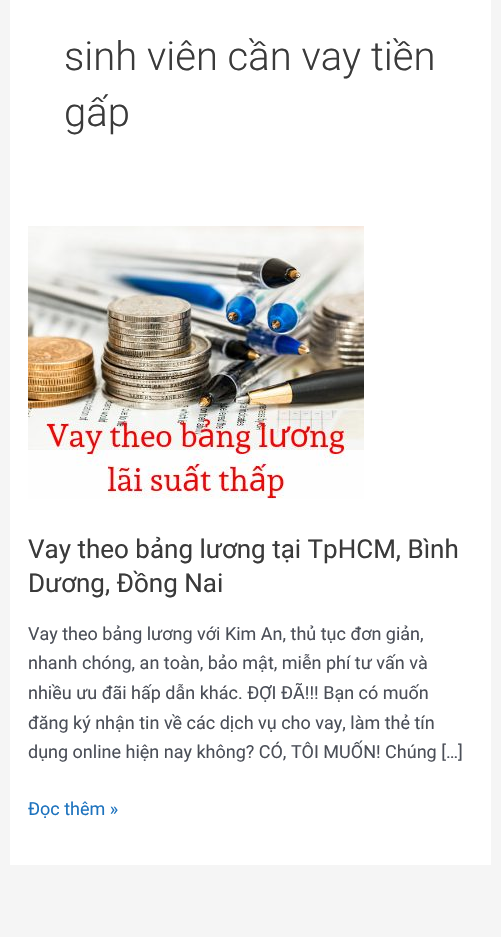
void draw(SkCanvas* canvas) {
	SkPaint fill;
	fill.setAntiAlias(true);
	auto makeFont = [&](const char* family, int weight, float size, bool italic = false) {
		SkFontStyle style(weight, SkFontStyle::kNormal_Width,
			italic ? SkFontStyle::kItalic_Slant : SkFontStyle::kUpright_Slant);
		SkFont result(fontMgr->matchFamilyStyle(family, style), size);
		result.setSubpixel(true);
		return result;
	};
	auto text = [&](const char* s, float x, float y, const SkFont& font) {
		canvas->drawString(s, x, y, font, fill);
	};
	auto box = [&](float l, float t, float r, float b) {
		canvas->drawRect(SkRect::MakeLTRB(l, t, r, b), fill);
	};
	auto picture = [&](const char* path, float l, float t, float r, float b) {
		auto image = SkImages::DeferredFromEncodedData(SkData::MakeFromFileName(path));
		canvas->drawImageRect(image, SkRect::MakeLTRB(l, t, r, b), SkSamplingOptions());
	};
	canvas->clear(0xFFF5F5F5);
	fill.setColor(0xFFFFFFFF);
	box(10, 0, 491, 865);
	picture("image0.png", 28, 226, 364, 499);
	auto font1 = makeFont("Roboto", 300, 40);
	fill.setColor(0xFF3A3A3A);
	text("sinh viên cần vay tiền", 64, 70, font1);
	text("gấp", 64, 126, font1);
	auto font2 = makeFont("Roboto", 400, 26);
	text("Vay theo bảng lương tại TpHCM, Bình", 28, 558, font2);
	text("Dương, Đồng Nai", 28, 592, font2);
	auto font3 = makeFont("Roboto", 400, 18);
	fill.setColor(0xFF4B4F58);
	text("Vay theo bảng lương với Kim An, thủ tục đơn giản,", 28, 640, font3);
	text("nhanh chóng, an toàn, bảo mật, miễn phí tư vấn và", 28, 669, font3);
	text("nhiều ưu đãi hấp dẫn khác. ĐỢI ĐÃ!!! Bạn có muốn", 28, 699, font3);
	text("đăng ký nhận tin về các dịch vụ cho vay, làm thẻ tín", 28, 729, font3);
	text("dụng online hiện nay không? CÓ, TÔI MUỐN! Chúng […]", 28, 758, font3);
	fill.setColor(0xFF1E73BE);
	text("Đọc thêm »", 28, 815, font3);
}
